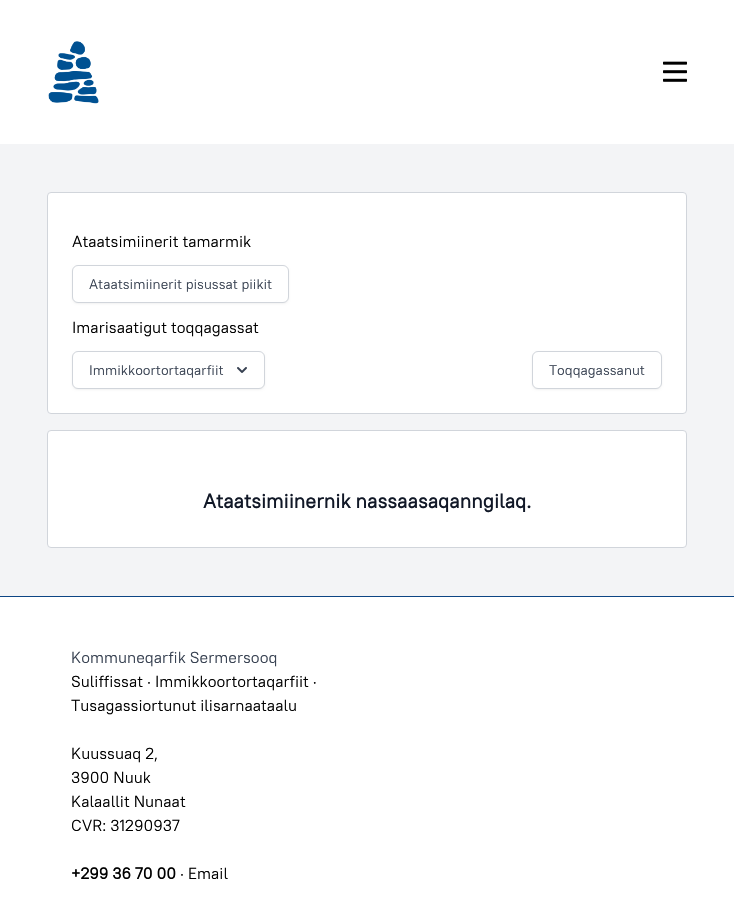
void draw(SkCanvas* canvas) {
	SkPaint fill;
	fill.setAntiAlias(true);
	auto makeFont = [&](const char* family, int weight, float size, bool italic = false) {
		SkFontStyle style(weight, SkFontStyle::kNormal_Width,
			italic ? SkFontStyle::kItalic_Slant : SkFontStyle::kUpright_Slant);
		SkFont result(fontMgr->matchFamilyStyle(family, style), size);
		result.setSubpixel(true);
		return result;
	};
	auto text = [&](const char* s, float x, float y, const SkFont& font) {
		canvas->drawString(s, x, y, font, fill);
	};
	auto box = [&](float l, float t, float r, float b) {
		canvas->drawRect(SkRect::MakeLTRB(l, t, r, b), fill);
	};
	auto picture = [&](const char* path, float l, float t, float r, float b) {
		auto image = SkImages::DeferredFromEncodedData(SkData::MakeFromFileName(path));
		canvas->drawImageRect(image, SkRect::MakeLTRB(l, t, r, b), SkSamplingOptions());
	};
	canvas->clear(0xFFFFFFFF);
	picture("image0.png", 48, 41, 99, 104);
	picture("image1.png", 663, 61, 687, 82);
	fill.setColor(0xFFF3F4F6);
	box(0, 144, 734, 596);
	fill.setColor(0xFFFFFFFF);
	canvas->drawRoundRect(SkRect::MakeLTRB(47.5f, 192.5f, 686.5f, 413.5f), 3.5f, 3.5f, fill);
	fill.setStyle(SkPaint::kStroke_Style);
	fill.setStrokeWidth(1);
	fill.setColor(0xFFD1D5DB);
	canvas->drawRoundRect(SkRect::MakeLTRB(47.5f, 192.5f, 686.5f, 413.5f), 3.5f, 3.5f, fill);
	fill.setStyle(SkPaint::kFill_Style);
	fill.setColor(0x0D000000);
	fill.setMaskFilter(SkMaskFilter::MakeBlur(kNormal_SkBlurStyle, 1));
	canvas->drawRoundRect(SkRect::MakeLTRB(72, 266, 289, 304), 6, 6, fill);
	fill.setMaskFilter(nullptr);
	fill.setColor(0xFFFFFFFF);
	canvas->drawRoundRect(SkRect::MakeLTRB(72.5f, 265.5f, 288.5f, 302.5f), 5.5f, 5.5f, fill);
	fill.setStyle(SkPaint::kStroke_Style);
	fill.setColor(0xFFD1D5DB);
	canvas->drawRoundRect(SkRect::MakeLTRB(72.5f, 265.5f, 288.5f, 302.5f), 5.5f, 5.5f, fill);
	fill.setStyle(SkPaint::kFill_Style);
	fill.setColor(0x0D000000);
	fill.setMaskFilter(SkMaskFilter::MakeBlur(kNormal_SkBlurStyle, 1));
	canvas->drawRoundRect(SkRect::MakeLTRB(72, 352, 265, 390), 6, 6, fill);
	fill.setMaskFilter(nullptr);
	fill.setColor(0xFFFFFFFF);
	canvas->drawRoundRect(SkRect::MakeLTRB(72.5f, 351.5f, 264.5f, 388.5f), 5.5f, 5.5f, fill);
	fill.setStyle(SkPaint::kStroke_Style);
	fill.setColor(0xFFD1D5DB);
	canvas->drawRoundRect(SkRect::MakeLTRB(72.5f, 351.5f, 264.5f, 388.5f), 5.5f, 5.5f, fill);
	picture("image2.png", 237, 367, 247, 373);
	fill.setStyle(SkPaint::kFill_Style);
	fill.setColor(0x0D000000);
	fill.setMaskFilter(SkMaskFilter::MakeBlur(kNormal_SkBlurStyle, 1));
	canvas->drawRoundRect(SkRect::MakeLTRB(532, 352, 662, 390), 6, 6, fill);
	fill.setMaskFilter(nullptr);
	fill.setColor(0xFFFFFFFF);
	canvas->drawRoundRect(SkRect::MakeLTRB(532.5f, 351.5f, 661.5f, 388.5f), 5.5f, 5.5f, fill);
	fill.setStyle(SkPaint::kStroke_Style);
	fill.setColor(0xFFD1D5DB);
	canvas->drawRoundRect(SkRect::MakeLTRB(532.5f, 351.5f, 661.5f, 388.5f), 5.5f, 5.5f, fill);
	fill.setStyle(SkPaint::kFill_Style);
	fill.setColor(0xFFFFFFFF);
	canvas->drawRoundRect(SkRect::MakeLTRB(47.5f, 430.5f, 686.5f, 547.5f), 3.5f, 3.5f, fill);
	fill.setStyle(SkPaint::kStroke_Style);
	fill.setColor(0xFFD1D5DB);
	canvas->drawRoundRect(SkRect::MakeLTRB(47.5f, 430.5f, 686.5f, 547.5f), 3.5f, 3.5f, fill);
	fill.setStyle(SkPaint::kFill_Style);
	fill.setColor(0xFF0C4584);
	box(0, 596, 734, 597);
	auto font1 = makeFont("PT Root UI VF", 400, 16);
	fill.setColor(0xFF000000);
	text("Ataatsimiinerit tamarmik", 72, 247, font1);
	auto font2 = makeFont("PT Root UI VF", 400, 14);
	fill.setColor(0xFF374151);
	text("Ataatsimiinerit pisussat piikit", 89, 289, font2);
	fill.setColor(0xFF000000);
	text("Imarisaatigut toqqagassat", 72, 333, font1);
	fill.setColor(0xFF374151);
	text("Immikkoortortaqarfiit", 89, 375, font2);
	text("Toqqagassanut", 549, 375, font2);
	auto font3 = makeFont("PT Root UI VF", 700, 20);
	fill.setColor(0xFF111827);
	text("Ataatsimiinernik nassaasaqanngilaq.", 203, 508, font3);
	fill.setColor(0xFF374151);
	text("Kommuneqarfik Sermersooq", 71, 663, font1);
	fill.setColor(0xFF000000);
	text("Suliffissat · Immikkoortortaqarfiit ·", 71, 687, font1);
	text("Tusagassiortunut ilisarnaataalu", 71, 711, font1);
	text("Kuussuaq 2,", 71, 759, font1);
	text("3900 Nuuk", 71, 783, font1);
	text("Kalaallit Nunaat", 71, 807, font1);
	text("CVR: 31290937", 71, 831, font1);
	auto font4 = makeFont("PT Root UI VF", 700, 16);
	text("+299 36 70 00", 71, 879, font4);
	text("· Email", 180, 879, font1);
}
